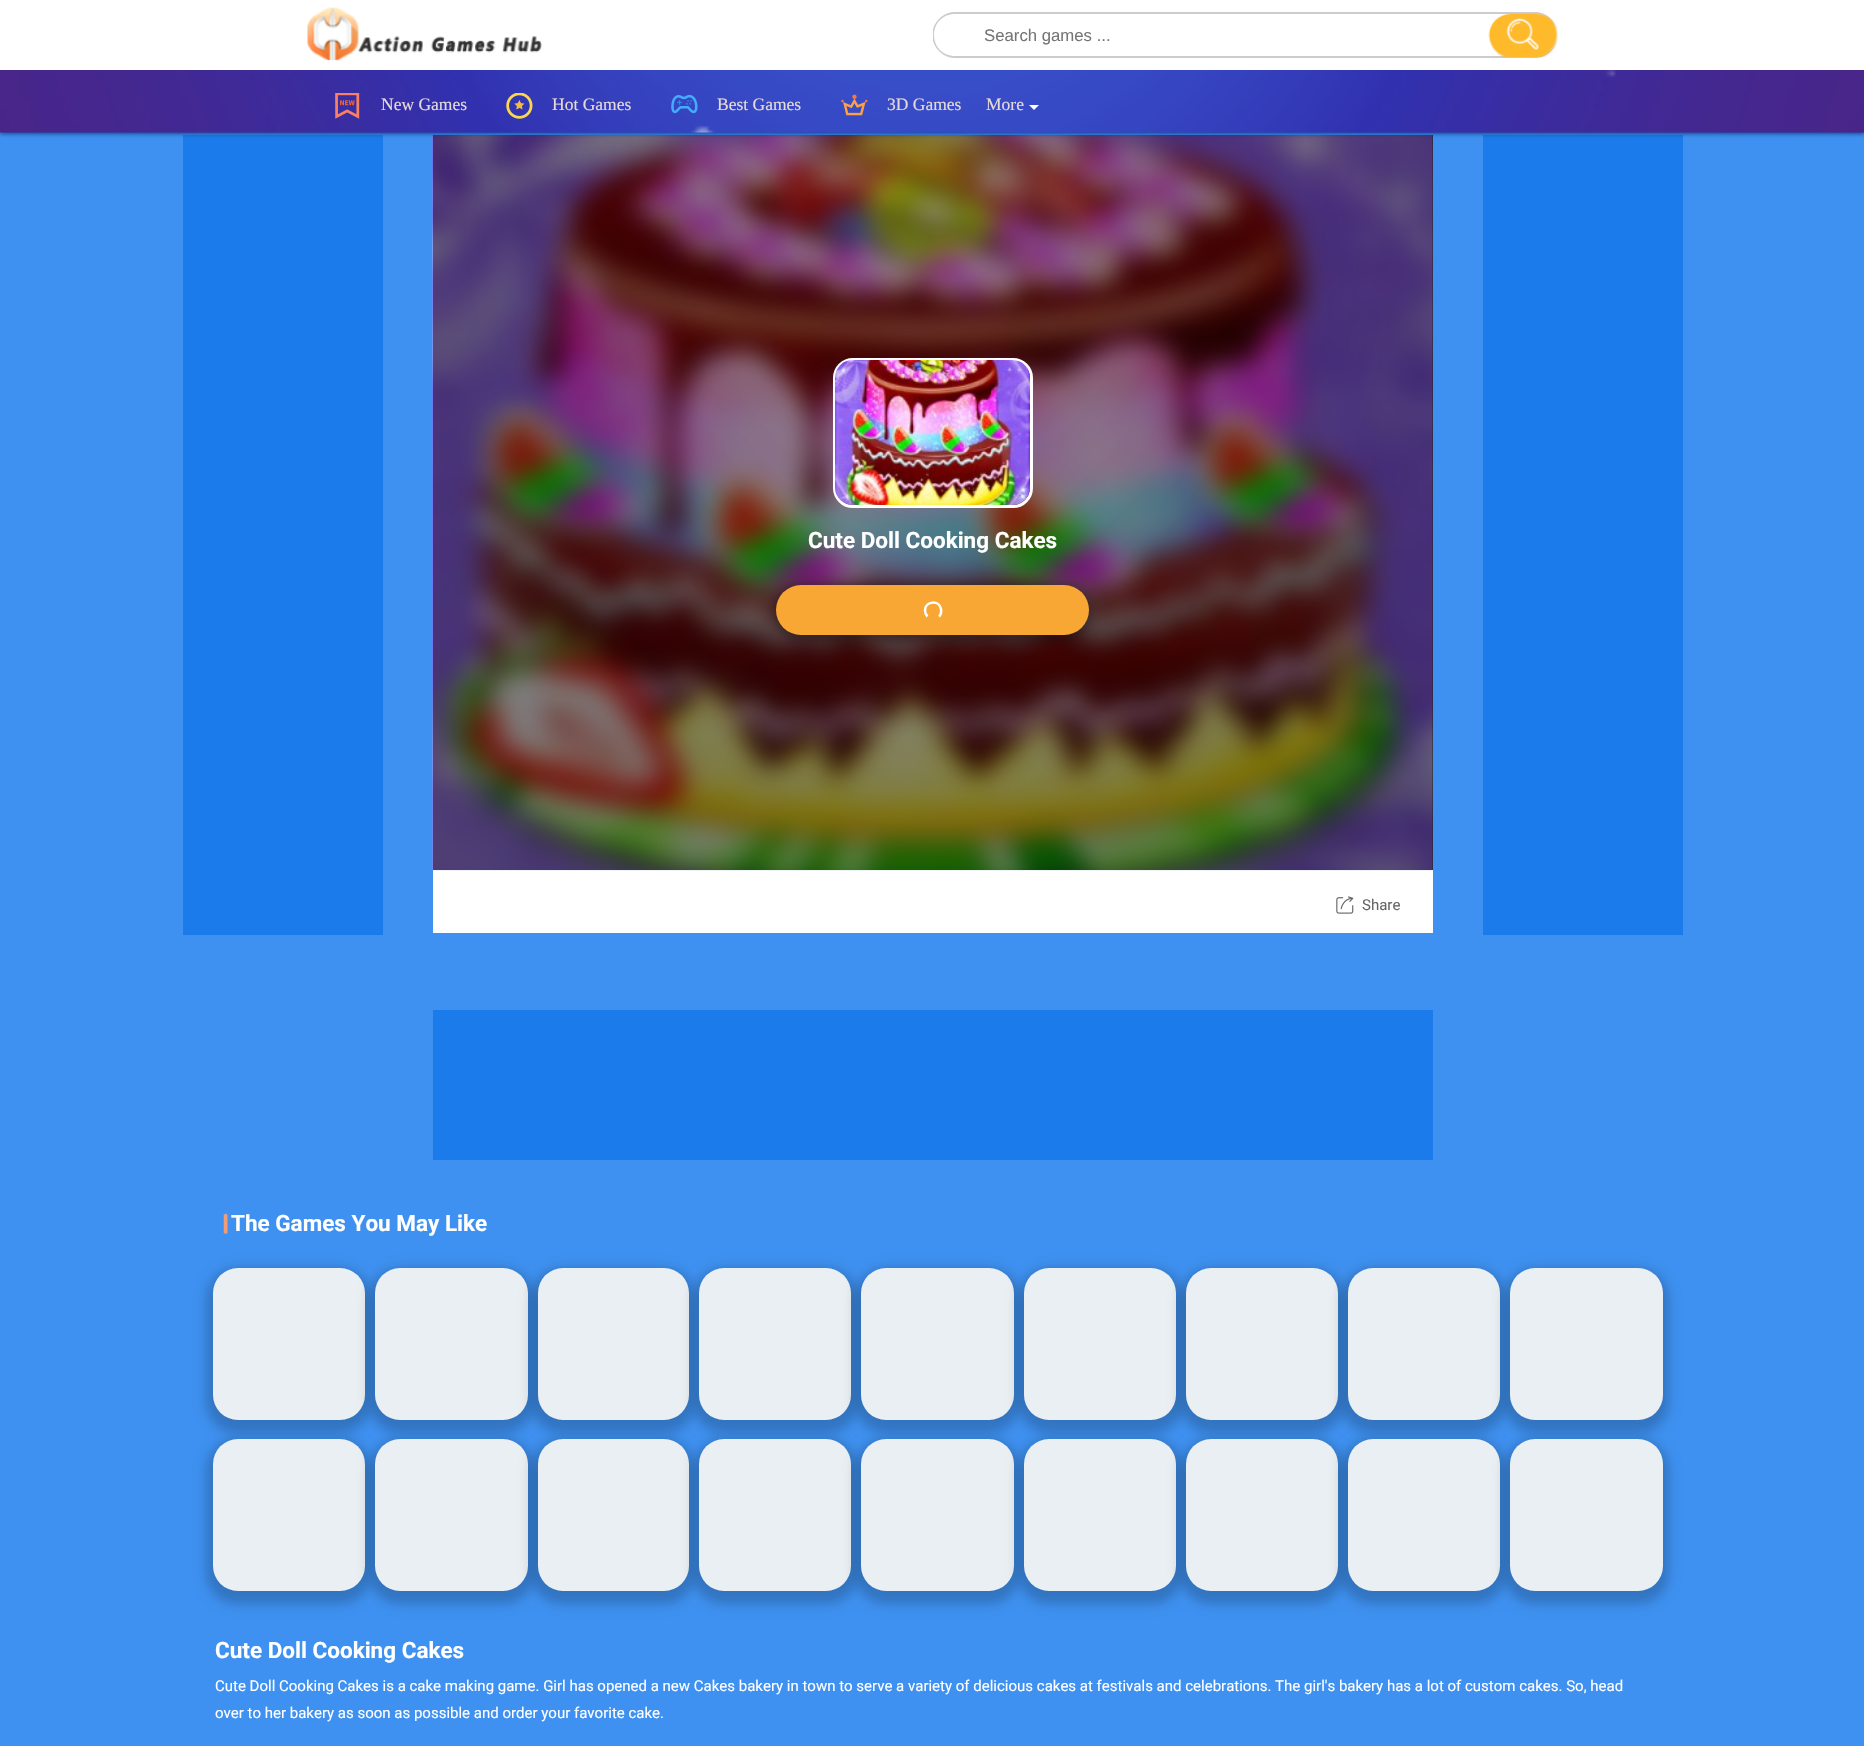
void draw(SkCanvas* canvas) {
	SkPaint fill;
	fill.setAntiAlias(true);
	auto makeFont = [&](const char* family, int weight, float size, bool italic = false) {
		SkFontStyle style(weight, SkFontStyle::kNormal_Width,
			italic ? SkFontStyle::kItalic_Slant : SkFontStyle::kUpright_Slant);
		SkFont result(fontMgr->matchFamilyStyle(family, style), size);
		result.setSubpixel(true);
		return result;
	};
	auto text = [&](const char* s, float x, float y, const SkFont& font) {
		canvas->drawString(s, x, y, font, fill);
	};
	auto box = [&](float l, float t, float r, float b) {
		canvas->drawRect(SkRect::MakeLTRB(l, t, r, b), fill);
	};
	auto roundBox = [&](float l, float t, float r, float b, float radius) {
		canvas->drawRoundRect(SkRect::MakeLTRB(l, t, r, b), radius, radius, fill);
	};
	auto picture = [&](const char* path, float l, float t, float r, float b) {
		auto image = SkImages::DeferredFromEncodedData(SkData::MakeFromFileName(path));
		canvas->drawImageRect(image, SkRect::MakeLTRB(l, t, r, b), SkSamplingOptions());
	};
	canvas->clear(0xFF3E91F1);
	fill.setColor(0xFF1B7BEA);
	box(183, 135, 383, 935);
	fill.setColor(0xFF444444);
	box(1432, 135, 1433, 870);
	picture("image7.png", 432, 135, 1433, 870);
	{
		const SkColor colors[] = {0x66000000, 0x80000000};
		const float stops[] = {0, 1};
		SkMatrix m = SkMatrix::Translate(933, 135).preScale(500, 735);
		fill.setShader(SkGradientShader::MakeRadial({0, 0}, 1, colors, stops, 2, SkTileMode::kClamp, 0, &m));
		fill.setAlpha(255);
	}
	box(433, 135, 1433, 870);
	fill.setShader(nullptr);
	fill.setColor(0xFF1B7BEA);
	box(1483, 135, 1683, 935);
	fill.setColor(0xFF0A2873);
	fill.setMaskFilter(SkMaskFilter::MakeBlur(kNormal_SkBlurStyle, 2.5f));
	canvas->drawRect(SkRect::MakeLTRB(0, 70, 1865, 133), fill);
	fill.setMaskFilter(nullptr);
	fill.setColor(0xFFFFFFFF);
	box(0, 0, 1864, 70);
	picture("image0.png", 307, 7, 542, 61);
	fill.setColor(0xFFCCCCCC);
	canvas->drawPath(SkPathBuilder().moveTo(955, 12).lineTo(1535, 12).cubicTo(1547, 12, 1557, 22, 1558, 34).cubicTo(1557, 23, 1547, 14, 1535, 14).lineTo(955, 14).cubicTo(943, 14, 934, 23, 934, 35).cubicTo(934, 47, 943, 56, 955, 56).lineTo(1535, 56).cubicTo(1547, 56, 1557, 47, 1558, 36).cubicTo(1557, 48, 1547, 58, 1535, 58).lineTo(955, 58).cubicTo(945, 58, 936, 51, 933, 41).lineTo(933, 29).cubicTo(936, 19, 945, 12, 955, 12).close().detach(), fill);
	picture("image1.png", 1488, 13, 1558, 58);
	picture("image2.png", 0, 70, 1864, 133);
	picture("image3.png", 335, 93, 360, 119);
	picture("image4.png", 506, 93, 533, 119);
	picture("image5.png", 671, 94, 698, 114);
	picture("image6.png", 841, 94, 868, 116);
	fill.setColor(0xFFFFFFFF);
	canvas->drawPath(SkPathBuilder().moveTo(1029, 105).lineTo(1039, 105).lineTo(1034, 110).close().detach(), fill);
	fill.setStyle(SkPaint::kStroke_Style);
	fill.setStrokeWidth(3);
	canvas->drawRoundRect(SkRect::MakeLTRB(834.5f, 359.5f, 1031.5f, 506.5f), 18.5f, 18.5f, fill);
	picture("image8.png", 835, 360, 1030, 505);
	fill.setStyle(SkPaint::kFill_Style);
	fill.setColor(0x59000000);
	fill.setMaskFilter(SkMaskFilter::MakeBlur(kNormal_SkBlurStyle, 6));
	canvas->drawRoundRect(SkRect::MakeLTRB(774, 585, 1091, 640), 27.5f, 27.5f, fill);
	fill.setMaskFilter(nullptr);
	fill.setColor(0xFFF8A735);
	roundBox(776, 585, 1089, 635, 25);
	fill.setStyle(SkPaint::kStroke_Style);
	fill.setStrokeWidth(2.5f);
	fill.setColor(0xFFFFFFFF);
	canvas->drawPath(SkPathBuilder().moveTo(927.5f, 616.5f).cubicTo(926, 615, 925, 613, 925, 610.5f).cubicTo(925, 601, 939, 599.5f, 941, 609).cubicTo(941.5f, 611.5f, 941, 614.5f, 939, 616.5f).detach(), fill);
	fill.setStyle(SkPaint::kFill_Style);
	box(433, 871, 1433, 933);
	fill.setColor(0xFFEDF3F7);
	box(433, 870, 1433, 871);
	picture("image9.png", 1336, 896, 1354, 914);
	fill.setColor(0xFF1B7BEA);
	box(433, 1010, 1433, 1160);
	picture("image10.png", 223, 1213, 228, 1234);
	fill.setColor(0x33000000);
	fill.setMaskFilter(SkMaskFilter::MakeBlur(kNormal_SkBlurStyle, 6));
	canvas->drawRoundRect(SkRect::MakeLTRB(206, 1268, 371, 1433), 31, 31, fill);
	fill.setMaskFilter(nullptr);
	fill.setColor(0xFFE9EFF2);
	roundBox(213, 1268, 365, 1420, 25);
	fill.setColor(0x33000000);
	fill.setMaskFilter(SkMaskFilter::MakeBlur(kNormal_SkBlurStyle, 6));
	canvas->drawRoundRect(SkRect::MakeLTRB(369, 1268, 534, 1433), 31, 31, fill);
	fill.setMaskFilter(nullptr);
	fill.setColor(0xFFE9EFF2);
	roundBox(375, 1268, 528, 1420, 25);
	fill.setColor(0x33000000);
	fill.setMaskFilter(SkMaskFilter::MakeBlur(kNormal_SkBlurStyle, 6));
	canvas->drawRoundRect(SkRect::MakeLTRB(531, 1268, 695, 1433), 31, 31, fill);
	fill.setMaskFilter(nullptr);
	fill.setColor(0xFFE9EFF2);
	roundBox(538, 1268, 689, 1420, 25);
	fill.setColor(0x33000000);
	fill.setMaskFilter(SkMaskFilter::MakeBlur(kNormal_SkBlurStyle, 6));
	canvas->drawRoundRect(SkRect::MakeLTRB(693, 1268, 858, 1433), 31, 31, fill);
	fill.setMaskFilter(nullptr);
	fill.setColor(0xFFE9EFF2);
	roundBox(699, 1268, 851, 1420, 25);
	fill.setColor(0x33000000);
	fill.setMaskFilter(SkMaskFilter::MakeBlur(kNormal_SkBlurStyle, 6));
	canvas->drawRoundRect(SkRect::MakeLTRB(855, 1268, 1020, 1433), 31, 31, fill);
	fill.setMaskFilter(nullptr);
	fill.setColor(0xFFE9EFF2);
	roundBox(861, 1268, 1014, 1420, 25);
	fill.setColor(0x33000000);
	fill.setMaskFilter(SkMaskFilter::MakeBlur(kNormal_SkBlurStyle, 6));
	canvas->drawRoundRect(SkRect::MakeLTRB(1018, 1268, 1183, 1433), 31, 31, fill);
	fill.setMaskFilter(nullptr);
	fill.setColor(0xFFE9EFF2);
	roundBox(1024, 1268, 1176, 1420, 25);
	fill.setColor(0x33000000);
	fill.setMaskFilter(SkMaskFilter::MakeBlur(kNormal_SkBlurStyle, 6));
	canvas->drawRoundRect(SkRect::MakeLTRB(1180, 1268, 1344, 1433), 31, 31, fill);
	fill.setMaskFilter(nullptr);
	fill.setColor(0xFFE9EFF2);
	roundBox(1186, 1268, 1338, 1420, 25);
	fill.setColor(0x33000000);
	fill.setMaskFilter(SkMaskFilter::MakeBlur(kNormal_SkBlurStyle, 6));
	canvas->drawRoundRect(SkRect::MakeLTRB(1341, 1268, 1506, 1433), 31, 31, fill);
	fill.setMaskFilter(nullptr);
	fill.setColor(0xFFE9EFF2);
	roundBox(1348, 1268, 1500, 1420, 25);
	fill.setColor(0x33000000);
	fill.setMaskFilter(SkMaskFilter::MakeBlur(kNormal_SkBlurStyle, 6));
	canvas->drawRoundRect(SkRect::MakeLTRB(1504, 1268, 1669, 1433), 31, 31, fill);
	fill.setMaskFilter(nullptr);
	fill.setColor(0xFFE9EFF2);
	roundBox(1510, 1268, 1663, 1420, 25);
	fill.setColor(0x33000000);
	fill.setMaskFilter(SkMaskFilter::MakeBlur(kNormal_SkBlurStyle, 6));
	canvas->drawRoundRect(SkRect::MakeLTRB(206, 1439, 371, 1604), 31, 31, fill);
	fill.setMaskFilter(nullptr);
	fill.setColor(0xFFE9EFF2);
	roundBox(213, 1439, 365, 1591, 25);
	fill.setColor(0x33000000);
	fill.setMaskFilter(SkMaskFilter::MakeBlur(kNormal_SkBlurStyle, 6));
	canvas->drawRoundRect(SkRect::MakeLTRB(369, 1439, 534, 1604), 31, 31, fill);
	fill.setMaskFilter(nullptr);
	fill.setColor(0xFFE9EFF2);
	roundBox(375, 1439, 528, 1591, 25);
	fill.setColor(0x33000000);
	fill.setMaskFilter(SkMaskFilter::MakeBlur(kNormal_SkBlurStyle, 6));
	canvas->drawRoundRect(SkRect::MakeLTRB(531, 1439, 695, 1604), 31, 31, fill);
	fill.setMaskFilter(nullptr);
	fill.setColor(0xFFE9EFF2);
	roundBox(538, 1439, 689, 1591, 25);
	fill.setColor(0x33000000);
	fill.setMaskFilter(SkMaskFilter::MakeBlur(kNormal_SkBlurStyle, 6));
	canvas->drawRoundRect(SkRect::MakeLTRB(693, 1439, 858, 1604), 31, 31, fill);
	fill.setMaskFilter(nullptr);
	fill.setColor(0xFFE9EFF2);
	roundBox(699, 1439, 851, 1591, 25);
	fill.setColor(0x33000000);
	fill.setMaskFilter(SkMaskFilter::MakeBlur(kNormal_SkBlurStyle, 6));
	canvas->drawRoundRect(SkRect::MakeLTRB(855, 1439, 1020, 1604), 31, 31, fill);
	fill.setMaskFilter(nullptr);
	fill.setColor(0xFFE9EFF2);
	roundBox(861, 1439, 1014, 1591, 25);
	fill.setColor(0x33000000);
	fill.setMaskFilter(SkMaskFilter::MakeBlur(kNormal_SkBlurStyle, 6));
	canvas->drawRoundRect(SkRect::MakeLTRB(1018, 1439, 1183, 1604), 31, 31, fill);
	fill.setMaskFilter(nullptr);
	fill.setColor(0xFFE9EFF2);
	roundBox(1024, 1439, 1176, 1591, 25);
	fill.setColor(0x33000000);
	fill.setMaskFilter(SkMaskFilter::MakeBlur(kNormal_SkBlurStyle, 6));
	canvas->drawRoundRect(SkRect::MakeLTRB(1180, 1439, 1344, 1604), 31, 31, fill);
	fill.setMaskFilter(nullptr);
	fill.setColor(0xFFE9EFF2);
	roundBox(1186, 1439, 1338, 1591, 25);
	fill.setColor(0x33000000);
	fill.setMaskFilter(SkMaskFilter::MakeBlur(kNormal_SkBlurStyle, 6));
	canvas->drawRoundRect(SkRect::MakeLTRB(1341, 1439, 1506, 1604), 31, 31, fill);
	fill.setMaskFilter(nullptr);
	fill.setColor(0xFFE9EFF2);
	roundBox(1348, 1439, 1500, 1591, 25);
	fill.setColor(0x33000000);
	fill.setMaskFilter(SkMaskFilter::MakeBlur(kNormal_SkBlurStyle, 6));
	canvas->drawRoundRect(SkRect::MakeLTRB(1504, 1439, 1669, 1604), 31, 31, fill);
	fill.setMaskFilter(nullptr);
	fill.setColor(0xFFE9EFF2);
	roundBox(1510, 1439, 1663, 1591, 25);
	auto font1 = makeFont("Liberation Sans", 400, 16.75f);
	fill.setColor(0xFF757575);
	text("Search games ...", 984, 41, font1);
	auto font2 = makeFont("Liberation Serif", 400, 17.5f);
	fill.setColor(0xFFE5D9D9);
	text("New Games", 381, 110, font2);
	text("Hot Games", 552, 110, font2);
	text("Best Games", 717, 110, font2);
	text("3D Games", 887, 110, font2);
	text("More", 986, 110, font2);
	auto font3 = makeFont("Roboto", 700, 22.5f);
	fill.setColor(0xFFFFFFFF);
	text("Cute Doll Cooking Cakes", 808, 548, font3);
	auto font4 = makeFont("Roboto", 400, 15);
	fill.setColor(0xFF666666);
	text("Share", 1362, 910, font4);
	fill.setColor(0xFFFFFFFF);
	text("The Games You May Like", 231, 1231, font3);
	text("Cute Doll Cooking Cakes", 215, 1658, font3);
	text("Cute Doll Cooking Cakes is a cake making game. Girl has opened a new Cakes bakery in town to serve a variety of delicious cakes at festivals and celebrations. The girl's bakery has a lot of custom cakes. So, head", 215, 1691, font4);
	text("over to her bakery as soon as possible and order your favorite cake.", 215, 1718, font4);
}
